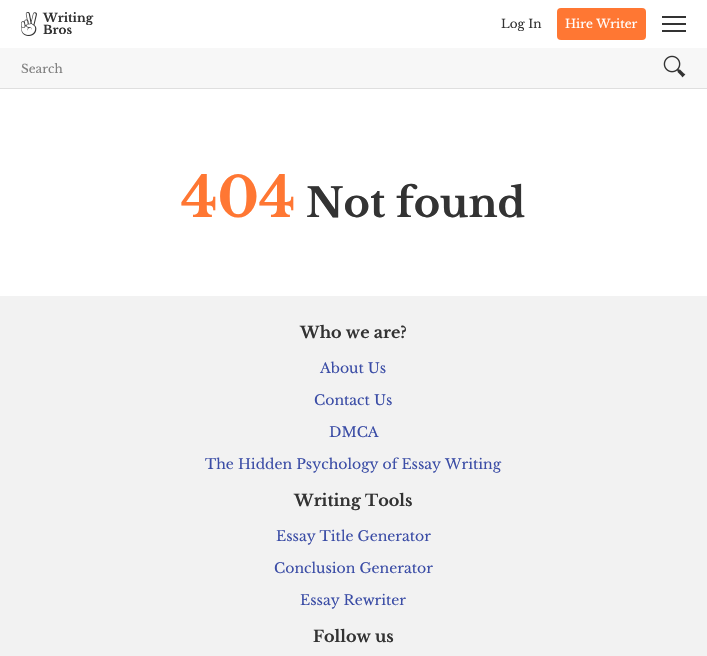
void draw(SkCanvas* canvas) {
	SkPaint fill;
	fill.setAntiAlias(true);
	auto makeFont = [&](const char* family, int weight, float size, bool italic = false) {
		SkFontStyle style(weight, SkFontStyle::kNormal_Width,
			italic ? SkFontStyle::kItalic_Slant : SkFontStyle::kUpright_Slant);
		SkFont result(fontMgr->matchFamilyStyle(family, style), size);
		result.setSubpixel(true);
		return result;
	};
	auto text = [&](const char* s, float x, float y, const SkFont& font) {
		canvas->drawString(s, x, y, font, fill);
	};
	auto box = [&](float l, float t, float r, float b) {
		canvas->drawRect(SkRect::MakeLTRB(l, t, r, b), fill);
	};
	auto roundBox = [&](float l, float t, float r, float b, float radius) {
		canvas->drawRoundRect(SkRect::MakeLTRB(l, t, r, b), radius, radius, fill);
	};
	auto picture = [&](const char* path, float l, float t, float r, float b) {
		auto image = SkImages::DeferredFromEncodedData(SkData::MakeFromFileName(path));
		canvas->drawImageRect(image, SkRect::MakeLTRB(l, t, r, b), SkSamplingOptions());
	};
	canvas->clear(0xFFFFFFFF);
	picture("image0.png", 21, 12, 37, 36);
	fill.setColor(0xFFFF7733);
	roundBox(557, 8, 646, 40, 4);
	fill.setColor(0xFF333333);
	box(662, 23, 686, 25);
	box(662, 16, 686, 18);
	box(662, 30, 686, 32);
	fill.setColor(0xFFF7F7F7);
	box(0, 48, 707, 88);
	fill.setColor(0xFFDFDFDF);
	box(0, 88, 707, 89);
	picture("image1.png", 663, 55, 686, 78);
	fill.setColor(0xFFF2F2F2);
	box(0, 296, 707, 656);
	auto font1 = makeFont("Libre Baskerville", 700, 12);
	fill.setColor(0xFF333333);
	text("Writing", 43, 22, font1);
	text("Bros", 43, 34, font1);
	auto font2 = makeFont("Libre Baskerville", 400, 12);
	text("Log In", 501, 28, font2);
	fill.setColor(0xFFFFFFFF);
	text("Hire Writer", 565, 28, font2);
	fill.setColor(0xFF808080);
	text("Search", 21, 73, font2);
	auto font3 = makeFont("Libre Baskerville", 700, 55);
	fill.setColor(0xFFFF7733);
	text("404", 181, 217, font3);
	auto font4 = makeFont("Libre Baskerville", 700, 40);
	fill.setColor(0xFF333333);
	text("Not found", 306, 217, font4);
	auto font5 = makeFont("Libre Baskerville", 700, 16);
	text("Who we are?", 300, 338, font5);
	auto font6 = makeFont("Libre Baskerville", 400, 14);
	fill.setColor(0xFF3B4DA6);
	text("About Us", 320, 373, font6);
	text("Contact Us", 314, 405, font6);
	text("DMCA", 329, 437, font6);
	text("The Hidden Psychology of Essay Writing", 205, 469, font6);
	fill.setColor(0xFF333333);
	text("Writing Tools", 294, 506, font5);
	fill.setColor(0xFF3B4DA6);
	text("Essay Title Generator", 276, 541, font6);
	text("Conclusion Generator", 274, 573, font6);
	text("Essay Rewriter", 300, 605, font6);
	fill.setColor(0xFF333333);
	text("Follow us", 313, 642, font5);
}
